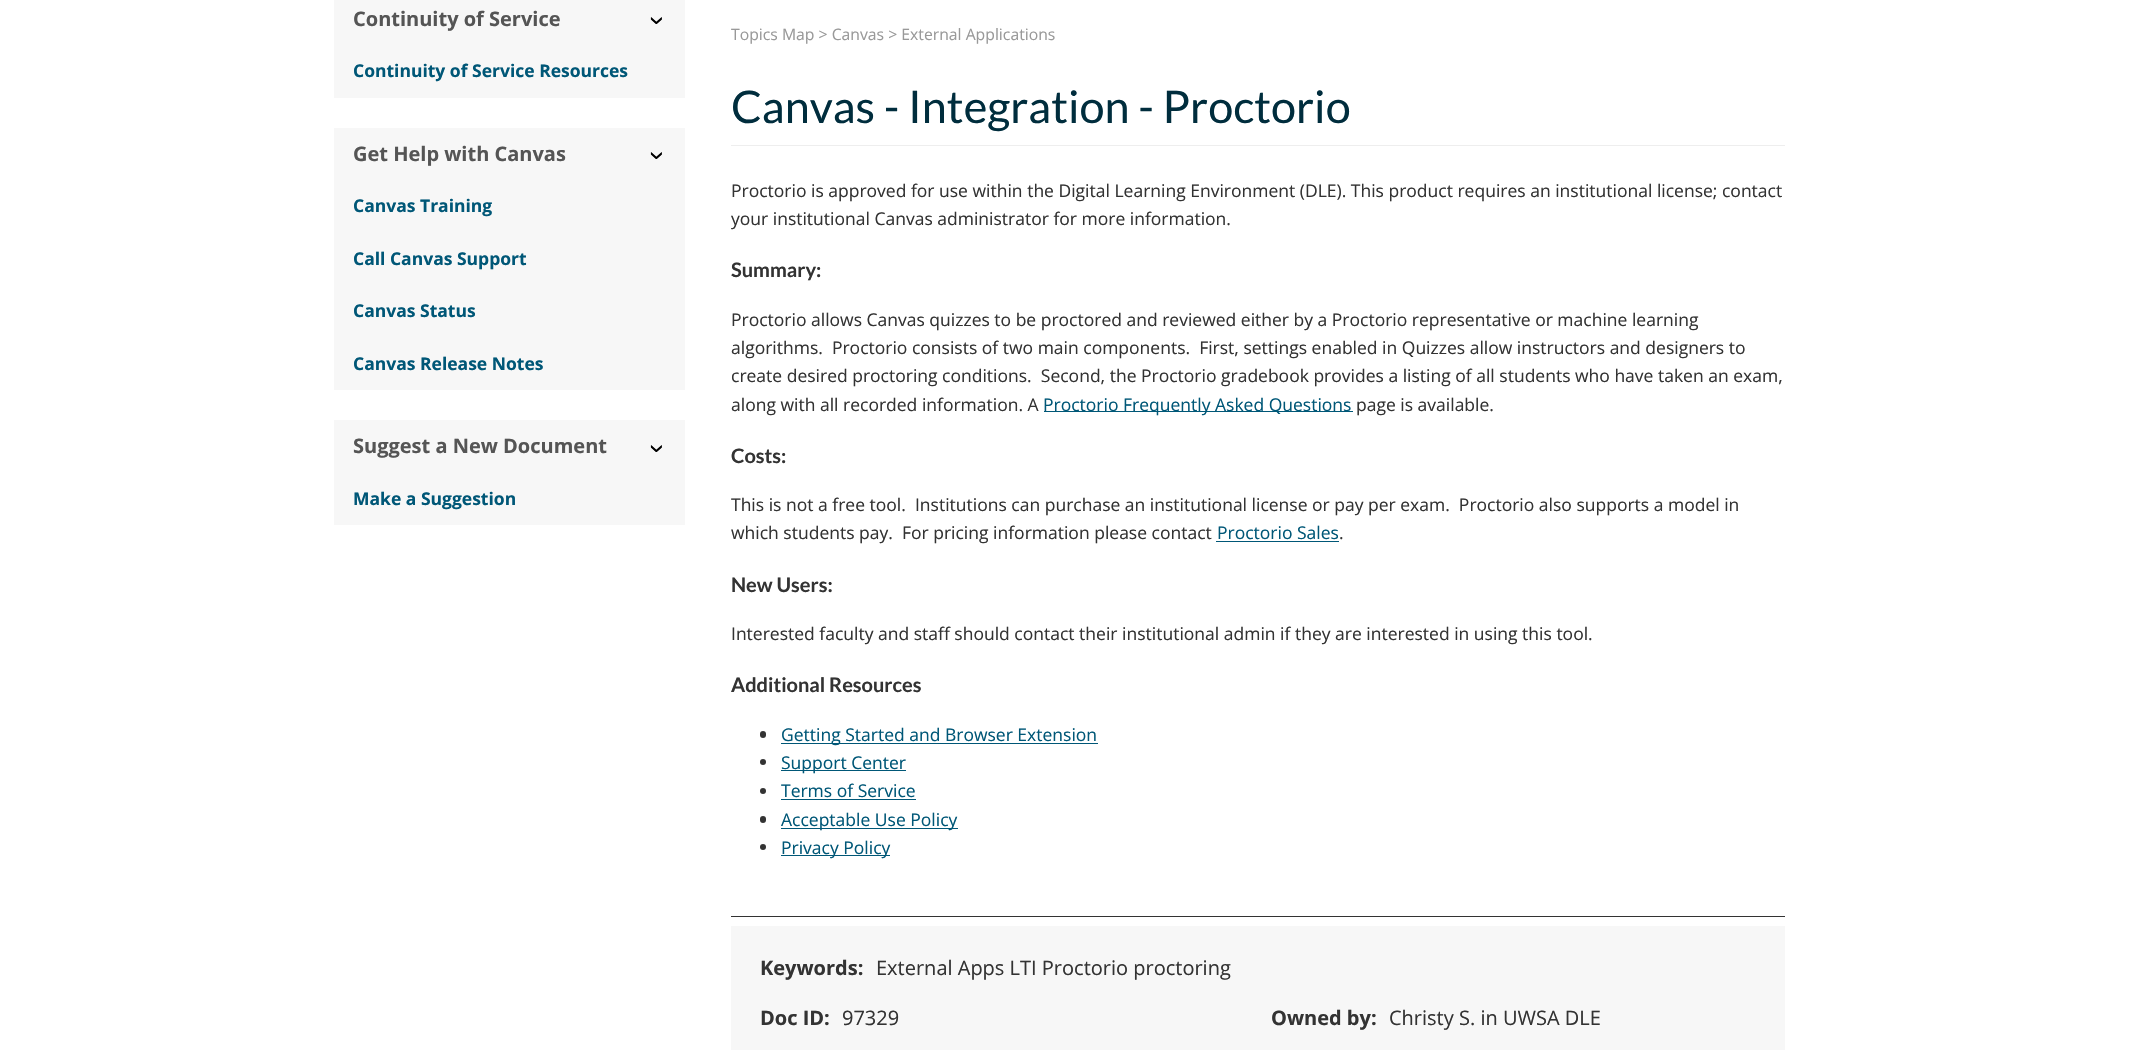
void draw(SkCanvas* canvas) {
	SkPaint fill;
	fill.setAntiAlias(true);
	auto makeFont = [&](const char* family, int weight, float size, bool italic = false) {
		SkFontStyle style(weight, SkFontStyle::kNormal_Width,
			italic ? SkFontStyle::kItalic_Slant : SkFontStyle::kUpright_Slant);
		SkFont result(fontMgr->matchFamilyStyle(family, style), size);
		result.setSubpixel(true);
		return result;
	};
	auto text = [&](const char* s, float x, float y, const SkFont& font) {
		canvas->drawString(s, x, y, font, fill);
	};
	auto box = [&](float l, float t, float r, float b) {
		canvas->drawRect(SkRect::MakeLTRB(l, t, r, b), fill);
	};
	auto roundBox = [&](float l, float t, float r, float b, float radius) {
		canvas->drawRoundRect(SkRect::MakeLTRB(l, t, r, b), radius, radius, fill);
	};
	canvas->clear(0xFFFFFFFF);
	fill.setColor(0xFFF7F7F7);
	box(334, 0, 685, 98);
	box(334, 128, 685, 390);
	box(334, 420, 685, 525);
	fill.setColor(0xFFEEEEEE);
	box(731, 145, 1785, 146);
	fill.setColor(0xFF005777);
	box(1044, 411, 1353, 412);
	box(1216, 541, 1339, 542);
	fill.setColor(0xFF333333);
	roundBox(760, 731, 766, 738, 3);
	fill.setColor(0xFF005777);
	box(781, 743, 1098, 744);
	fill.setColor(0xFF333333);
	canvas->drawCircle(763, 762, 3, fill);
	fill.setColor(0xFF005777);
	box(781, 770, 906, 771);
	fill.setColor(0xFF333333);
	canvas->drawCircle(763, 791, 3, fill);
	fill.setColor(0xFF005777);
	box(781, 799, 916, 800);
	fill.setColor(0xFF333333);
	roundBox(760, 816, 766, 823, 3);
	fill.setColor(0xFF005777);
	box(781, 828, 958, 829);
	fill.setColor(0xFF333333);
	canvas->drawCircle(763, 847, 3, fill);
	fill.setColor(0xFF005777);
	box(781, 855, 890, 856);
	fill.setColor(0xFF333333);
	box(731, 916, 1785, 917);
	fill.setColor(0xFFF7F7F7);
	box(731, 926, 1785, 1050);
	auto font1 = makeFont("Open Sans", 700, 20);
	fill.setColor(0xFF555555);
	text("Continuity of Service", 353, 26, font1);
	auto font2 = makeFont("Liberation Sans", 400, 28);
	fill.setColor(0xFF000000);
	canvas->save();
	canvas->rotate(90, 649, 16);
	text("›", 649, 16, font2);
	canvas->restore();
	auto font3 = makeFont("Open Sans", 700, 17.5f);
	fill.setColor(0xFF005777);
	text("Continuity of Service Resources", 353, 77, font3);
	fill.setColor(0xFF555555);
	text("Get Help with Canvas", 353, 161, font1);
	fill.setColor(0xFF000000);
	canvas->save();
	canvas->rotate(90, 649, 151);
	text("›", 649, 151, font2);
	canvas->restore();
	fill.setColor(0xFF005777);
	text("Canvas Training", 353, 212, font3);
	text("Call Canvas Support", 353, 265, font3);
	text("Canvas Status", 353, 317, font3);
	text("Canvas Release Notes", 353, 370, font3);
	fill.setColor(0xFF555555);
	text("Suggest a New Document", 353, 453, font1);
	fill.setColor(0xFF000000);
	canvas->save();
	canvas->rotate(90, 649, 444);
	text("›", 649, 444, font2);
	canvas->restore();
	fill.setColor(0xFF005777);
	text("Make a Suggestion", 353, 505, font3);
	auto font4 = makeFont("Open Sans", 400, 15.75f);
	fill.setColor(0xFF999999);
	text("Topics Map > Canvas > External Applications", 731, 40, font4);
	auto font5 = makeFont("Lato", 400, 45);
	fill.setColor(0xFF002D3D);
	text("Canvas - Integration - Proctorio", 731, 123, font5);
	auto font6 = makeFont("Open Sans", 400, 17.5f);
	fill.setColor(0xFF333333);
	text("Proctorio is approved for use within the Digital Learning Environment (DLE). This product requires an institutional license; contact", 731, 197, font6);
	text("your institutional Canvas administrator for more information.", 731, 225, font6);
	auto font7 = makeFont("Lato", 700, 20);
	text("Summary:", 731, 277, font7);
	text("Proctorio allows Canvas quizzes to be proctored and reviewed either by a Proctorio representative or machine learning", 731, 326, font6);
	text("algorithms.  Proctorio consists of two main components.  First, settings enabled in Quizzes allow instructors and designers to", 731, 354, font6);
	text("create desired proctoring conditions.  Second, the Proctorio gradebook provides a listing of all students who have taken an exam,", 731, 382, font6);
	text("along with all recorded information. A", 731, 411, font6);
	fill.setColor(0xFF005777);
	text("Proctorio Frequently Asked Questions", 1043, 411, font6);
	fill.setColor(0xFF333333);
	text("page is available.", 1356, 411, font6);
	text("Costs:", 731, 463, font7);
	text("This is not a free tool.  Institutions can purchase an institutional license or pay per exam.  Proctorio also supports a model in", 731, 511, font6);
	text("which students pay.  For pricing information please contact", 731, 539, font6);
	fill.setColor(0xFF005777);
	text("Proctorio Sales", 1217, 539, font6);
	fill.setColor(0xFF333333);
	text(".", 1339, 539, font6);
	text("New Users:", 731, 592, font7);
	text("Interested faculty and staff should contact their institutional admin if they are interested in using this tool.", 731, 640, font6);
	text("Additional Resources", 731, 692, font7);
	fill.setColor(0xFF005777);
	text("Getting Started and Browser Extension", 781, 741, font6);
	text("Support Center", 781, 769, font6);
	text("Terms of Service", 781, 797, font6);
	text("Acceptable Use Policy", 781, 826, font6);
	text("Privacy Policy", 781, 854, font6);
	fill.setColor(0xFF333333);
	text("Keywords:", 760, 975, font1);
	auto font8 = makeFont("Open Sans", 400, 20);
	text("External Apps LTI Proctorio proctoring", 876, 975, font8);
	text("Doc ID:", 760, 1025, font1);
	text("97329", 842, 1025, font8);
	text("Owned by:", 1271, 1025, font1);
	text("Christy S. in UWSA DLE", 1389, 1025, font8);
}
